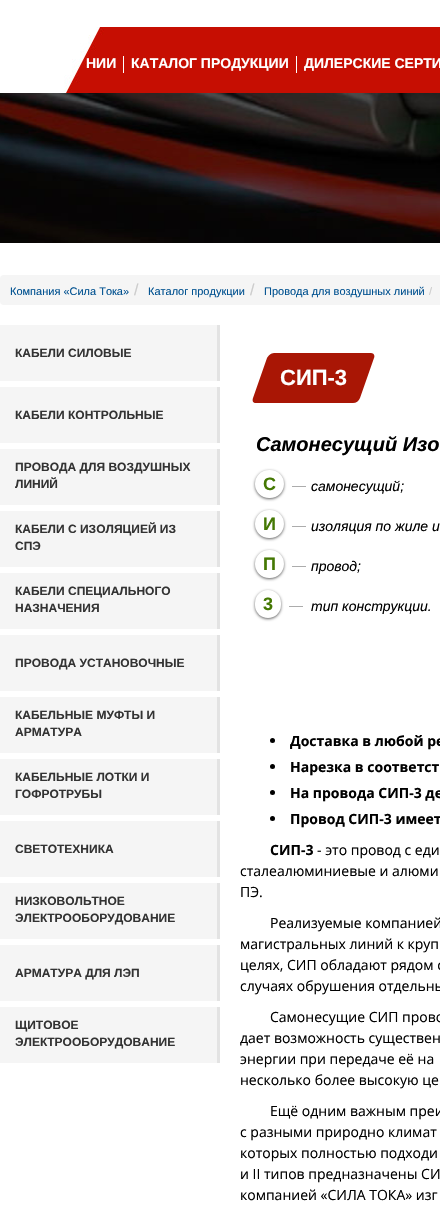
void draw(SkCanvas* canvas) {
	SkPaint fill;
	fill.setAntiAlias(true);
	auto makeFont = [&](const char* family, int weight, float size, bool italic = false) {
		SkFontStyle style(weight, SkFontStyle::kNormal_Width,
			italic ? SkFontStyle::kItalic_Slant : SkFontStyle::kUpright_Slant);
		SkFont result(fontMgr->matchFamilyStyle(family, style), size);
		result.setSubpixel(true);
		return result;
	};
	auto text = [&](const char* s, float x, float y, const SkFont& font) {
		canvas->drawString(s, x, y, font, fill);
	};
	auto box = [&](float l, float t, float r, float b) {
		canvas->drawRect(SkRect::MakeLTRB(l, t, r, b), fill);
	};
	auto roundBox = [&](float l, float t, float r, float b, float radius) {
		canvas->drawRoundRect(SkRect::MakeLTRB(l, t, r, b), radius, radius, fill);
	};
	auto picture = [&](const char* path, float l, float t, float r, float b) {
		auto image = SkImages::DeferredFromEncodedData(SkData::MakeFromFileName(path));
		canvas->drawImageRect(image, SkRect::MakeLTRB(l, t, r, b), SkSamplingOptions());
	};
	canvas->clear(0xFFFFFFFF);
	picture("image0.png", 64, 27, 440, 93);
	fill.setColor(0xFFFFFFFF);
	box(123, 56, 124, 73);
	box(296, 56, 297, 73);
	picture("image1.png", 0, 93, 440, 243);
	fill.setColor(0xFFF5F5F5);
	roundBox(0, 275, 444, 305, 4);
	box(0, 325, 217, 381);
	fill.setColor(0xFFE3E3E3);
	box(217, 325, 220, 381);
	fill.setColor(0xFFF5F5F5);
	box(0, 387, 217, 443);
	fill.setColor(0xFFE3E3E3);
	box(217, 387, 220, 443);
	fill.setColor(0xFFF5F5F5);
	box(0, 449, 217, 505);
	fill.setColor(0xFFE3E3E3);
	box(217, 449, 220, 505);
	fill.setColor(0xFFF5F5F5);
	box(0, 511, 217, 567);
	fill.setColor(0xFFE3E3E3);
	box(217, 511, 220, 567);
	fill.setColor(0xFFF5F5F5);
	box(0, 573, 217, 629);
	fill.setColor(0xFFE3E3E3);
	box(217, 573, 220, 629);
	fill.setColor(0xFFF5F5F5);
	box(0, 635, 217, 691);
	fill.setColor(0xFFE3E3E3);
	box(217, 635, 220, 691);
	fill.setColor(0xFFF5F5F5);
	box(0, 697, 217, 753);
	fill.setColor(0xFFE3E3E3);
	box(217, 697, 220, 753);
	fill.setColor(0xFFF5F5F5);
	box(0, 759, 217, 815);
	fill.setColor(0xFFE3E3E3);
	box(217, 759, 220, 815);
	fill.setColor(0xFFF5F5F5);
	box(0, 821, 217, 877);
	fill.setColor(0xFFE3E3E3);
	box(217, 821, 220, 877);
	fill.setColor(0xFFF5F5F5);
	box(0, 883, 217, 939);
	fill.setColor(0xFFE3E3E3);
	box(217, 883, 220, 939);
	fill.setColor(0xFFF5F5F5);
	box(0, 945, 217, 1001);
	fill.setColor(0xFFE3E3E3);
	box(217, 945, 220, 1001);
	fill.setColor(0xFFF5F5F5);
	box(0, 1007, 217, 1063);
	fill.setColor(0xFFE3E3E3);
	box(217, 1007, 220, 1063);
	fill.setColor(0xFFA91605);
	canvas->drawPath(SkPathBuilder().moveTo(274, 353).lineTo(371, 353).cubicTo(374, 353, 375, 356, 374, 358).lineTo(360, 398).cubicTo(359, 401, 356, 403, 353, 403).lineTo(256, 403).cubicTo(253, 403, 252, 401, 253, 398).lineTo(267, 358).cubicTo(268, 356, 271, 353, 274, 353).close().detach(), fill);
	fill.setColor(0xFF616161);
	fill.setMaskFilter(SkMaskFilter::MakeBlur(kNormal_SkBlurStyle, 1.5f));
	canvas->drawRoundRect(SkRect::MakeLTRB(255, 471, 284, 499), 14, 14, fill);
	fill.setMaskFilter(nullptr);
	fill.setColor(0xFFFFFFFF);
	roundBox(255, 470, 284, 498, 14);
	fill.setColor(0xFF616161);
	fill.setMaskFilter(SkMaskFilter::MakeBlur(kNormal_SkBlurStyle, 1.5f));
	canvas->drawRoundRect(SkRect::MakeLTRB(255, 511, 284, 539), 14, 14, fill);
	fill.setMaskFilter(nullptr);
	fill.setColor(0xFFFFFFFF);
	roundBox(255, 510, 284, 538, 14);
	fill.setColor(0xFF616161);
	fill.setMaskFilter(SkMaskFilter::MakeBlur(kNormal_SkBlurStyle, 1.5f));
	canvas->drawRoundRect(SkRect::MakeLTRB(255, 551, 284, 579), 14, 14, fill);
	fill.setMaskFilter(nullptr);
	fill.setColor(0xFFFFFFFF);
	roundBox(255, 550, 284, 578, 14);
	fill.setColor(0xFF616161);
	fill.setMaskFilter(SkMaskFilter::MakeBlur(kNormal_SkBlurStyle, 1.5f));
	canvas->drawRoundRect(SkRect::MakeLTRB(255, 591, 281, 619), 13, 13, fill);
	fill.setMaskFilter(nullptr);
	fill.setColor(0xFFFFFFFF);
	roundBox(255, 590, 281, 618, 13);
	fill.setColor(0xFF000000);
	canvas->drawCircle(272.5f, 740.5f, 2.5f, fill);
	canvas->drawCircle(272.5f, 766.5f, 2.5f, fill);
	canvas->drawCircle(272.5f, 792.5f, 2.5f, fill);
	canvas->drawCircle(272.5f, 818.5f, 2.5f, fill);
	auto font1 = makeFont("Liberation Sans", 700, 14);
	fill.setColor(0xFFFFFFFF);
	text("НИИ", 86, 68, font1);
	text("КАТАЛОГ ПРОДУКЦИИ", 131, 68, font1);
	text("ДИЛЕРСКИЕ СЕРТИ", 304, 68, font1);
	auto font2 = makeFont("Liberation Sans", 400, 11);
	fill.setColor(0xFF005190);
	text("Компания «Сила Тока»", 10, 295, font2);
	auto font3 = makeFont("Liberation Sans", 400, 16);
	fill.setColor(0xFFCCCCCC);
	text("/", 134, 295, font3);
	fill.setColor(0xFF005190);
	text("Каталог продукции", 148, 295, font2);
	fill.setColor(0xFFCCCCCC);
	text("/", 250, 295, font3);
	fill.setColor(0xFF005190);
	text("Провода для воздушных линий", 264, 295, font2);
	fill.setColor(0xFFCCCCCC);
	text("/", 429, 295, font2);
	auto font4 = makeFont("Liberation Sans", 700, 12);
	fill.setColor(0xFF333333);
	text("КАБЕЛИ СИЛОВЫЕ", 15, 357, font4);
	text("КАБЕЛИ КОНТРОЛЬНЫЕ", 15, 419, font4);
	text("ПРОВОДА ДЛЯ ВОЗДУШНЫХ", 15, 471, font4);
	text("ЛИНИЙ", 15, 488, font4);
	text("КАБЕЛИ С ИЗОЛЯЦИЕЙ ИЗ", 15, 533, font4);
	text("СПЭ", 15, 550, font4);
	text("КАБЕЛИ СПЕЦИАЛЬНОГО", 15, 595, font4);
	text("НАЗНАЧЕНИЯ", 15, 612, font4);
	text("ПРОВОДА УСТАНОВОЧНЫЕ", 15, 667, font4);
	text("КАБЕЛЬНЫЕ МУФТЫ И", 15, 719, font4);
	text("АРМАТУРА", 15, 736, font4);
	text("КАБЕЛЬНЫЕ ЛОТКИ И", 15, 781, font4);
	text("ГОФРОТРУБЫ", 15, 798, font4);
	text("СВЕТОТЕХНИКА", 15, 853, font4);
	text("НИЗКОВОЛЬТНОЕ", 15, 905, font4);
	text("ЭЛЕКТРООБОРУДОВАНИЕ", 15, 922, font4);
	text("АРМАТУРА ДЛЯ ЛЭП", 15, 977, font4);
	text("ЩИТОВОЕ", 15, 1029, font4);
	text("ЭЛЕКТРООБОРУДОВАНИЕ", 15, 1046, font4);
	auto font5 = makeFont("Liberation Sans", 700, 22);
	fill.setColor(0xFFFFFFFF);
	text("СИП-3", 280, 385, font5);
	auto font6 = makeFont("Liberation Sans", 700, 20, true);
	fill.setColor(0xFF000000);
	text("Самонесущий Изо", 256, 451, font6);
	auto font7 = makeFont("Liberation Sans", 700, 18);
	fill.setColor(0xFF447803);
	text("С", 263, 490, font7);
	auto font8 = makeFont("Liberation Sans", 400, 14);
	fill.setColor(0xFFA7A7A7);
	text("—", 292, 490, font8);
	auto font9 = makeFont("Liberation Sans", 400, 14, true);
	fill.setColor(0xFF000000);
	text("самонесущий;", 311, 491, font9);
	fill.setColor(0xFF447803);
	text("И", 263, 530, font7);
	fill.setColor(0xFFA7A7A7);
	text("—", 292, 530, font8);
	fill.setColor(0xFF000000);
	text("изоляция по жиле и", 311, 531, font9);
	fill.setColor(0xFF447803);
	text("П", 263, 570, font7);
	fill.setColor(0xFFA7A7A7);
	text("—", 292, 570, font8);
	fill.setColor(0xFF000000);
	text("провод;", 311, 571, font9);
	fill.setColor(0xFF447803);
	text("3", 263, 610, font7);
	fill.setColor(0xFFA7A7A7);
	text("—", 289, 610, font8);
	fill.setColor(0xFF000000);
	text("тип конструкции.", 311, 611, font9);
	auto font10 = makeFont("Open Sans", 700, 14);
	text("Доставка в любой ре", 290, 746, font10);
	text("Нарезка в соответст", 290, 772, font10);
	text("На провода СИП-3 де", 290, 798, font10);
	text("Провод СИП-3 имеет", 290, 824, font10);
	text("СИП-3", 270, 855, font10);
	auto font11 = makeFont("Open Sans", 400, 14);
	text("- это провод с еди", 317, 855, font11);
	text("сталеалюминиевые и алюми", 240, 876, font11);
	text("ПЭ.", 240, 897, font11);
	text("Реализуемые компанией", 270, 928, font11);
	text("магистральных линий к круп", 240, 949, font11);
	text("целях, СИП обладают рядом с", 240, 970, font11);
	text("случаях обрушения отдельны", 240, 991, font11);
	text("Самонесущие СИП прово", 270, 1022, font11);
	text("дает возможность существен", 240, 1043, font11);
	text("энергии при передаче её на", 240, 1064, font11);
	text("несколько более высокую це", 240, 1085, font11);
	text("Ещё одним важным преи", 270, 1116, font11);
	text("с разными природно климат", 240, 1137, font11);
	text("которых полностью подходи", 240, 1158, font11);
	text("и II типов предназначены СИ", 240, 1179, font11);
	text("компанией «СИЛА ТОКА» изг", 240, 1200, font11);
}
